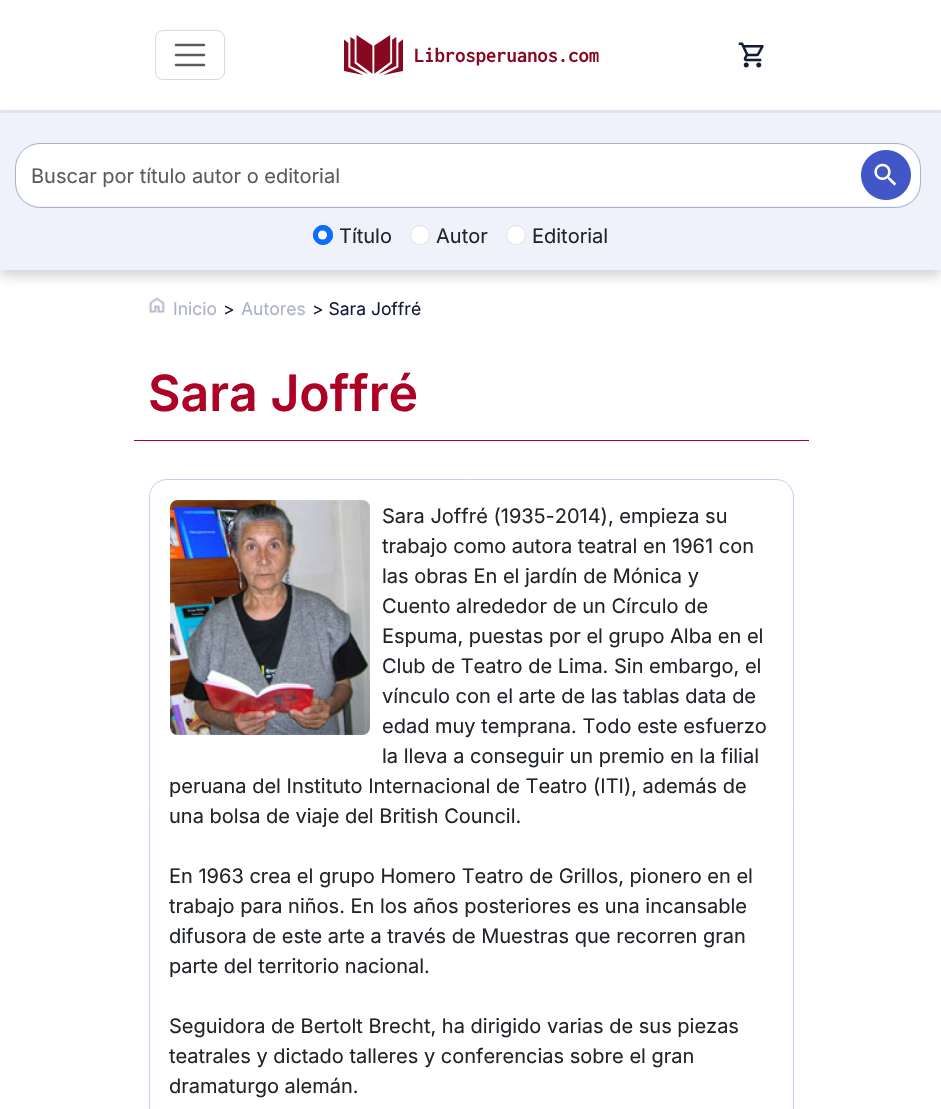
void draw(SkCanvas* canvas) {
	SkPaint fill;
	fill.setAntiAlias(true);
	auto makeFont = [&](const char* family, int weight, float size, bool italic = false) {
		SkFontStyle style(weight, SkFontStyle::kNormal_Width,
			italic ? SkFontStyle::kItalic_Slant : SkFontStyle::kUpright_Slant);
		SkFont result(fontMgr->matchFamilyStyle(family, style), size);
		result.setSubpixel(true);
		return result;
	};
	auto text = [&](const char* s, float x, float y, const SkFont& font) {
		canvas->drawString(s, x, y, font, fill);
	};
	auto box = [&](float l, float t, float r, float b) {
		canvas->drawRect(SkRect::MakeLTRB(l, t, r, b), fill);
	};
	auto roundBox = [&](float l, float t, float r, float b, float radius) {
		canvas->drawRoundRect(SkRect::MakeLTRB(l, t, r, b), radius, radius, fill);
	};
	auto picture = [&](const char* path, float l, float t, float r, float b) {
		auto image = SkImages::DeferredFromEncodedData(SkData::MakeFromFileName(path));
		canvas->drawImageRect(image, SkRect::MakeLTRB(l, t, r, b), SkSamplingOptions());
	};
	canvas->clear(0xFFFFFFFF);
	fill.setStyle(SkPaint::kStroke_Style);
	fill.setStrokeWidth(1);
	fill.setColor(0xFFD9D9D9);
	canvas->drawRoundRect(SkRect::MakeLTRB(155.5f, 30.5f, 224.5f, 79.5f), 7.5f, 7.5f, fill);
	fill.setStrokeWidth(2.5f);
	fill.setStrokeCap(SkPaint::kRound_Cap);
	fill.setColor(0xFF595C5F);
	canvas->drawPath(SkPathBuilder().moveTo(176, 45).lineTo(204, 45).moveTo(176, 55).lineTo(204, 55).moveTo(176, 65).lineTo(204, 65).detach(), fill);
	picture("image0.png", 344, 35, 599, 75);
	picture("image1.png", 738, 42, 764, 68);
	fill.setStyle(SkPaint::kFill_Style);
	fill.setColor(0x80A4A4A4);
	fill.setMaskFilter(SkMaskFilter::MakeBlur(kNormal_SkBlurStyle, 6));
	canvas->drawRect(SkRect::MakeLTRB(0, 119, 941, 276), fill);
	fill.setMaskFilter(nullptr);
	fill.setColor(0xFFE1E4EF);
	box(0, 110, 941, 113);
	fill.setColor(0xFFEFF1FB);
	box(0, 113, 941, 270);
	fill.setColor(0xFFFFFFFF);
	roundBox(16, 144, 920, 206, 24);
	fill.setStyle(SkPaint::kStroke_Style);
	fill.setStrokeWidth(1);
	fill.setStrokeCap(SkPaint::kButt_Cap);
	fill.setColor(0xFFACB0C8);
	canvas->drawRoundRect(SkRect::MakeLTRB(15.5f, 143.5f, 920.5f, 207.5f), 24.5f, 24.5f, fill);
	picture("image2.png", 861, 150, 911, 200);
	fill.setStyle(SkPaint::kFill_Style);
	fill.setColor(0xFF0D6EFD);
	canvas->drawCircle(323, 235, 10, fill);
	fill.setColor(0xFFFFFFFF);
	canvas->drawCircle(322.5f, 235, 4.5f, fill);
	fill.setStyle(SkPaint::kStroke_Style);
	fill.setColor(0xFF0D6EFD);
	canvas->drawCircle(323, 235, 9.5f, fill);
	fill.setStyle(SkPaint::kFill_Style);
	fill.setColor(0xFFFFFFFF);
	canvas->drawCircle(420, 235, 9.5f, fill);
	fill.setStyle(SkPaint::kStroke_Style);
	fill.setColor(0xFFDEE2E6);
	canvas->drawCircle(420, 235, 9.5f, fill);
	fill.setStyle(SkPaint::kFill_Style);
	fill.setColor(0xFFFFFFFF);
	canvas->drawCircle(516, 235, 9.5f, fill);
	fill.setStyle(SkPaint::kStroke_Style);
	fill.setColor(0xFFDEE2E6);
	canvas->drawCircle(516, 235, 9.5f, fill);
	picture("image3.png", 148, 297, 165, 313);
	fill.setStyle(SkPaint::kFill_Style);
	fill.setColor(0xFFAE0225);
	box(134, 440, 809, 441);
	fill.setStyle(SkPaint::kStroke_Style);
	fill.setColor(0xFFC5CDF1);
	canvas->drawRoundRect(SkRect::MakeLTRB(149.5f, 479.5f, 793.5f, 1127.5f), 17.5f, 17.5f, fill);
	picture("image4.png", 170, 500, 370, 735);
	auto font1 = makeFont("Inter", 400, 20);
	fill.setStyle(SkPaint::kFill_Style);
	fill.setColor(0xFF595C5F);
	text("Buscar por título autor o editorial", 31, 183, font1);
	fill.setColor(0xFF212529);
	text("Título", 339, 243, font1);
	text("Autor", 436, 243, font1);
	text("Editorial", 532, 243, font1);
	auto font2 = makeFont("Inter", 400, 17.5f);
	fill.setColor(0xFFACB0C8);
	text("Inicio", 173, 315, font2);
	fill.setColor(0xFF131939);
	text(">", 223, 315, font2);
	fill.setColor(0xFFACB0C8);
	text("Autores", 241, 315, font2);
	fill.setColor(0xFF131939);
	text("> Sara Joffré", 312, 315, font2);
	auto font3 = makeFont("Inter", 600, 50);
	fill.setColor(0xFFAE0225);
	text("Sara Joffré", 148, 411, font3);
	fill.setColor(0xFF212529);
	text("Sara Joffré (1935-2014), empieza su", 382, 523, font1);
	text("trabajo como autora teatral en 1961 con", 382, 553, font1);
	text("las obras En el jardín de Mónica y", 382, 583, font1);
	text("Cuento alrededor de un Círculo de", 382, 613, font1);
	text("Espuma, puestas por el grupo Alba en el", 382, 643, font1);
	text("Club de Teatro de Lima. Sin embargo, el", 382, 673, font1);
	text("vínculo con el arte de las tablas data de", 382, 703, font1);
	text("edad muy temprana. Todo este esfuerzo", 382, 733, font1);
	text("la lleva a conseguir un premio en la filial", 382, 763, font1);
	text("peruana del Instituto Internacional de Teatro (ITI), además de", 169, 793, font1);
	text("una bolsa de viaje del British Council.", 169, 823, font1);
	text("En 1963 crea el grupo Homero Teatro de Grillos, pionero en el", 169, 883, font1);
	text("trabajo para niños. En los años posteriores es una incansable", 169, 913, font1);
	text("difusora de este arte a través de Muestras que recorren gran", 169, 943, font1);
	text("parte del territorio nacional.", 169, 973, font1);
	text("Seguidora de Bertolt Brecht, ha dirigido varias de sus piezas", 169, 1033, font1);
	text("teatrales y dictado talleres y conferencias sobre el gran", 169, 1063, font1);
	text("dramaturgo alemán.", 169, 1093, font1);
}
